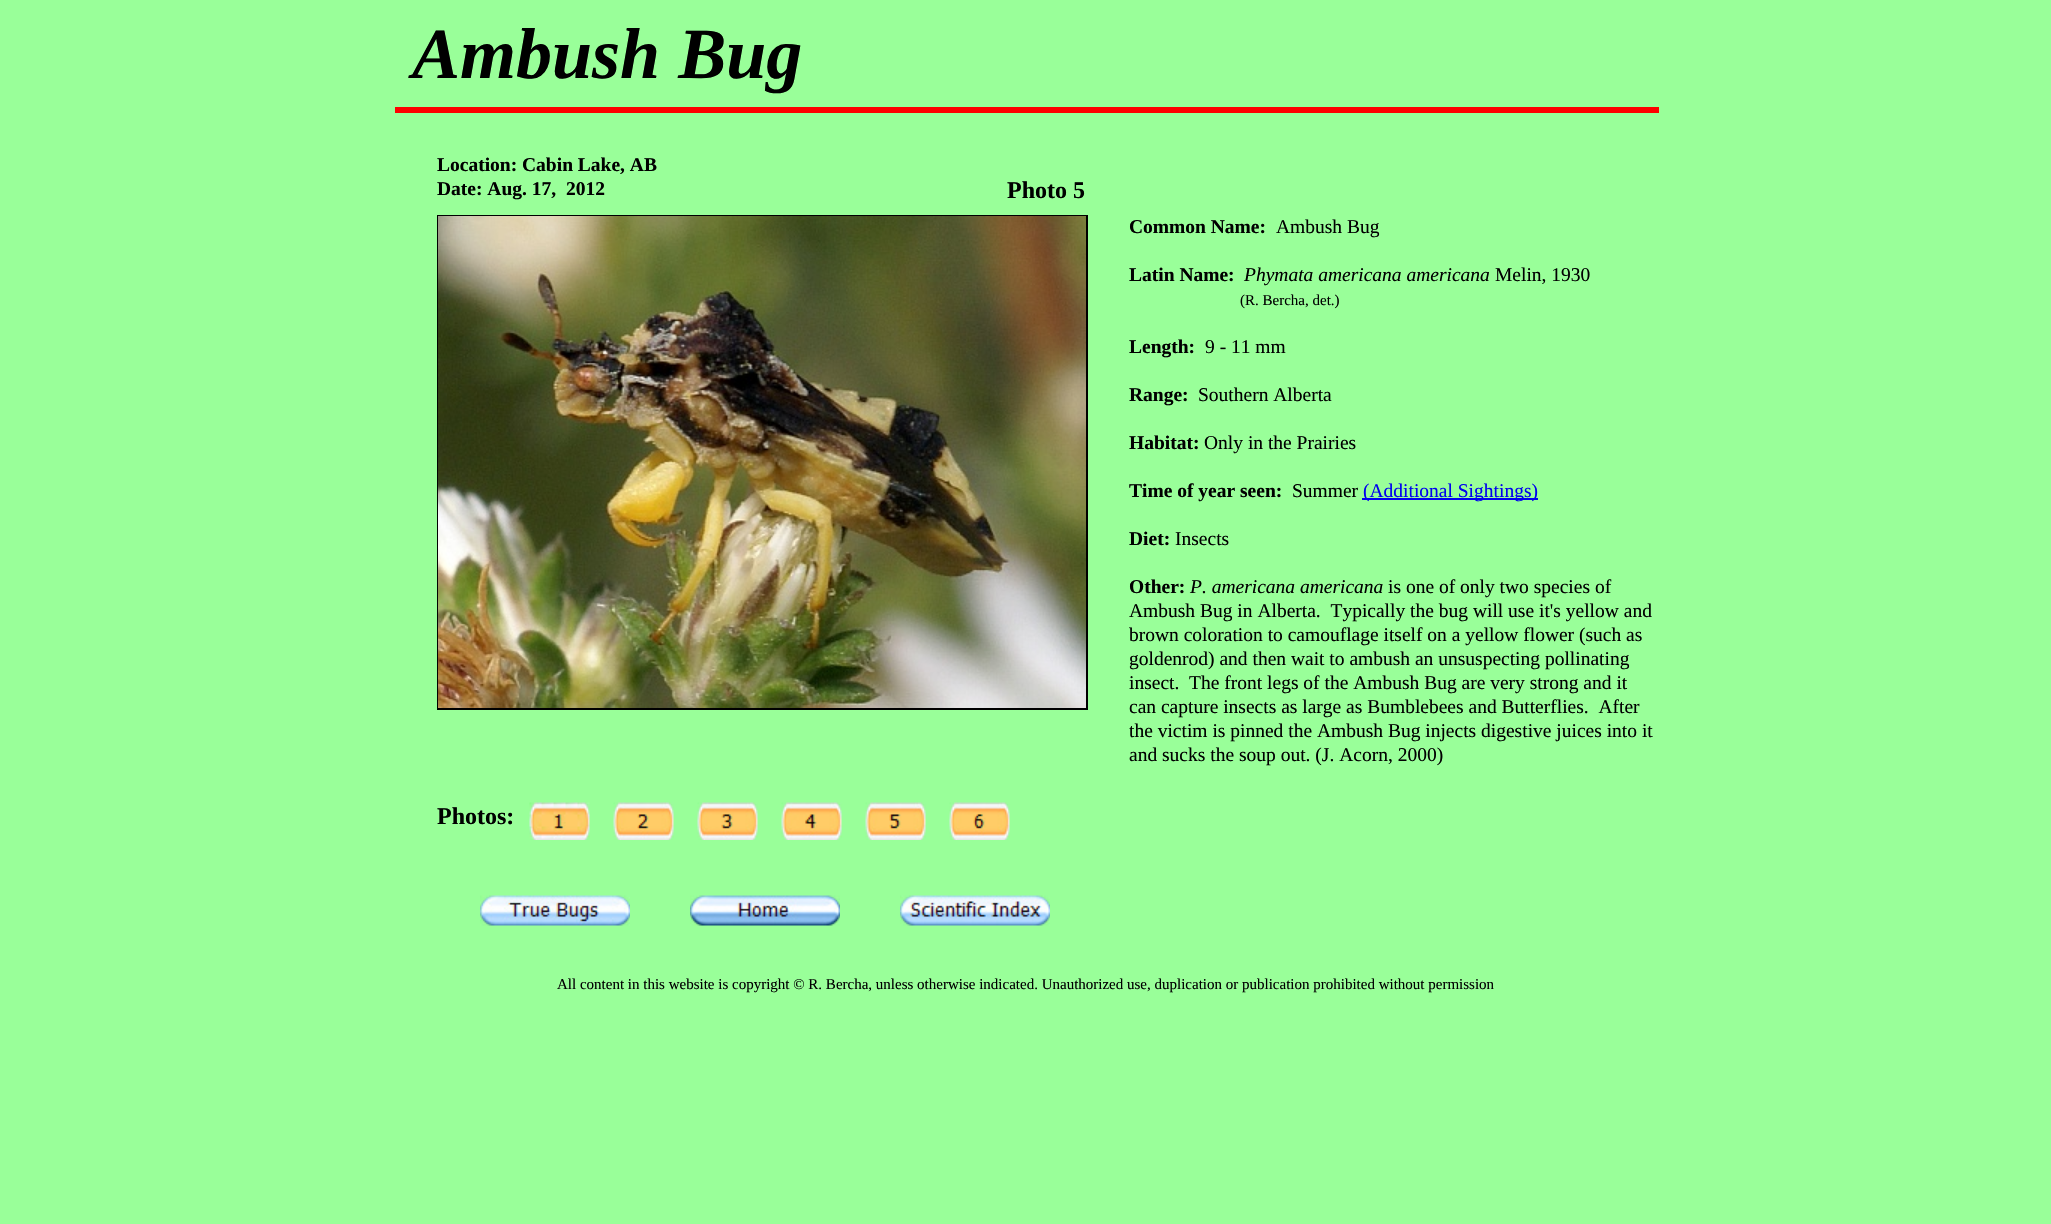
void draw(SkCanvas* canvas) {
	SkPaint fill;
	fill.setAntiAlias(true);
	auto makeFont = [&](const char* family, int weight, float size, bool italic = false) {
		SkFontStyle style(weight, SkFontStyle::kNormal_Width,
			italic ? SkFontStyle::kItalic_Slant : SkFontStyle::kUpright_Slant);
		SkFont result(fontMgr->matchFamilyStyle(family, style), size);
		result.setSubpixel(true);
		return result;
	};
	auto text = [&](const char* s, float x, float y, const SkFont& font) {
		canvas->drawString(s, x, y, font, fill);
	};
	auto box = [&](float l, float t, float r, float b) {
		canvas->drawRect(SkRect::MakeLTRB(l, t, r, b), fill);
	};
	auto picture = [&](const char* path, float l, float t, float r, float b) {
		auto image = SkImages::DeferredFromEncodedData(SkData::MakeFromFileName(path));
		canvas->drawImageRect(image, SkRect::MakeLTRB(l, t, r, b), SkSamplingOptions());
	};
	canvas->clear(0xFF99FF99);
	fill.setColor(0xFFFF0000);
	box(395, 107, 1659, 113);
	fill.setStyle(SkPaint::kStroke_Style);
	fill.setStrokeWidth(2);
	fill.setColor(0xFF000000);
	canvas->drawRect(SkRect::MakeLTRB(438, 216, 1087, 709), fill);
	picture("image0.png", 438, 216, 1086, 708);
	fill.setStyle(SkPaint::kFill_Style);
	fill.setColor(0xFF0000EE);
	box(1362, 498, 1538, 500);
	picture("image1.png", 529, 802, 590, 840);
	picture("image2.png", 613, 802, 674, 840);
	picture("image3.png", 697, 802, 758, 840);
	picture("image4.png", 781, 802, 842, 840);
	picture("image5.png", 865, 802, 926, 840);
	picture("image6.png", 949, 802, 1010, 840);
	picture("image7.png", 480, 895, 630, 926);
	picture("image8.png", 690, 895, 840, 926);
	picture("image9.png", 900, 895, 1050, 926);
	auto font1 = makeFont("Liberation Serif", 700, 72, true);
	fill.setColor(0xFF000000);
	text("Ambush Bug", 412, 78, font1);
	auto font2 = makeFont("Liberation Serif", 700, 19.5f);
	text("Location: Cabin Lake, AB", 437, 171, font2);
	text("Date: Aug. 17,  2012", 437, 195, font2);
	auto font3 = makeFont("Liberation Serif", 700, 24);
	text("Photo 5", 1007, 198, font3);
	text("Common Name:", 1129, 233, font2);
	auto font4 = makeFont("Liberation Serif", 400, 19.5f);
	text("Ambush Bug", 1276, 233, font4);
	text("Latin Name:", 1129, 281, font2);
	auto font5 = makeFont("Liberation Serif", 400, 19.5f, true);
	text("Phymata americana americana", 1244, 281, font5);
	text("Melin, 1930", 1495, 281, font4);
	auto font6 = makeFont("Liberation Serif", 400, 15);
	text("(R. Bercha, det.)", 1240, 305, font6);
	text("Length:", 1129, 353, font2);
	text("9 - 11 mm", 1205, 353, font4);
	text("Range:", 1129, 401, font2);
	text("Southern Alberta", 1198, 401, font4);
	text("Habitat:", 1129, 449, font2);
	text("Only in the Prairies", 1204, 449, font4);
	text("Time of year seen:", 1129, 497, font2);
	text("Summer", 1292, 497, font4);
	fill.setColor(0xFF0000EE);
	text("(Additional Sightings)", 1363, 497, font4);
	fill.setColor(0xFF000000);
	text("Diet:", 1129, 545, font2);
	text("Insects", 1175, 545, font4);
	text("Other:", 1129, 593, font2);
	text("P. americana americana", 1190, 593, font5);
	text("is one of only two species of", 1388, 593, font4);
	text("Ambush Bug in Alberta.  Typically the bug will use it's yellow and", 1129, 617, font4);
	text("brown coloration to camouflage itself on a yellow flower (such as", 1129, 641, font4);
	text("goldenrod) and then wait to ambush an unsuspecting pollinating", 1129, 665, font4);
	text("insect.  The front legs of the Ambush Bug are very strong and it", 1129, 689, font4);
	text("can capture insects as large as Bumblebees and Butterflies.  After", 1129, 713, font4);
	text("the victim is pinned the Ambush Bug injects digestive juices into it", 1129, 737, font4);
	text("and sucks the soup out. (J. Acorn, 2000)", 1129, 761, font4);
	text("Photos:", 437, 824, font3);
	text("All content in this website is copyright © R. Bercha, unless otherwise indicated. Unauthorized use, duplication or publication prohibited without permission", 557, 989, font6);
}
